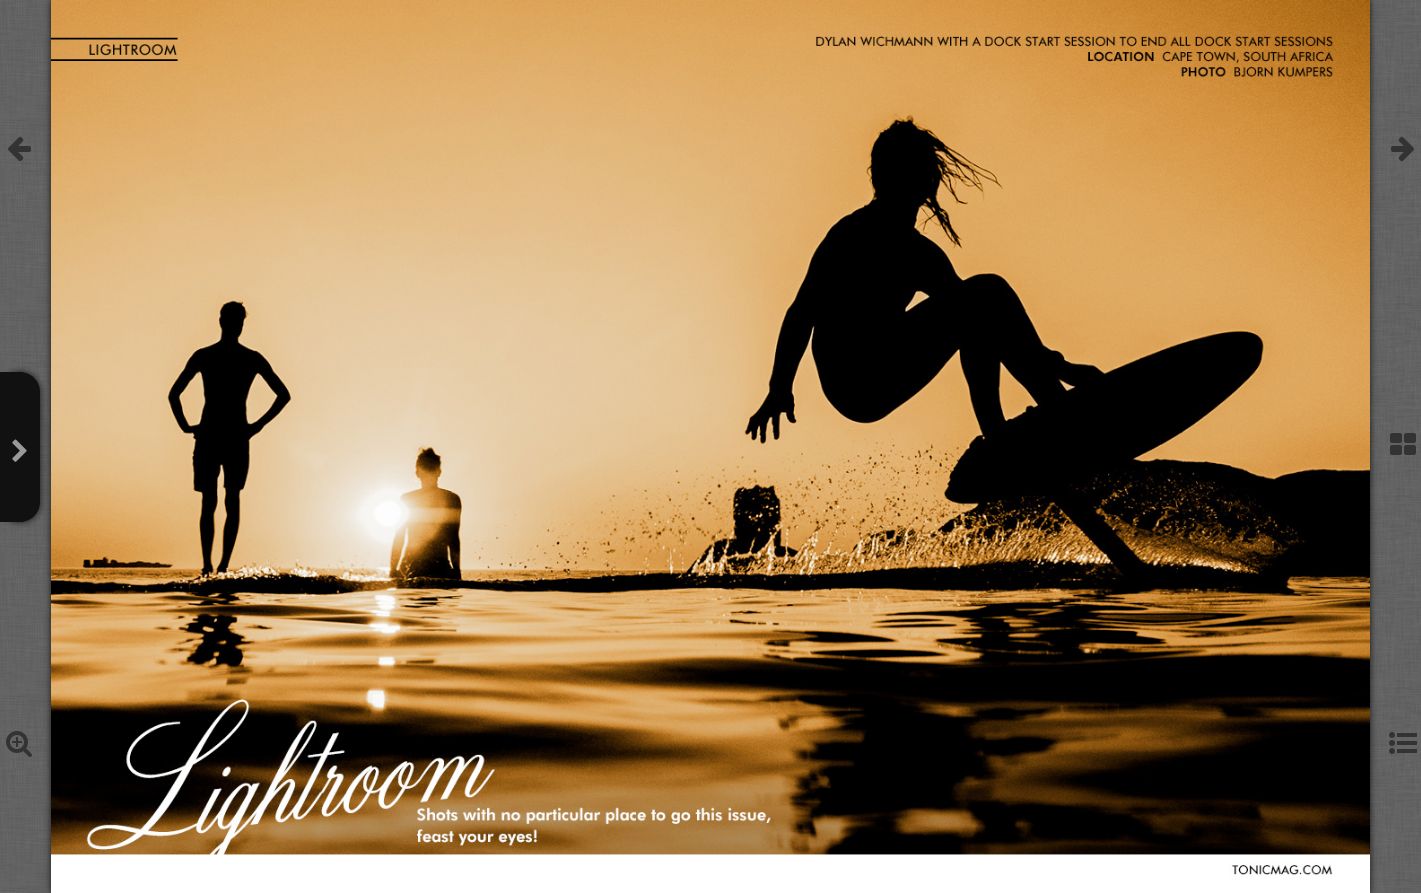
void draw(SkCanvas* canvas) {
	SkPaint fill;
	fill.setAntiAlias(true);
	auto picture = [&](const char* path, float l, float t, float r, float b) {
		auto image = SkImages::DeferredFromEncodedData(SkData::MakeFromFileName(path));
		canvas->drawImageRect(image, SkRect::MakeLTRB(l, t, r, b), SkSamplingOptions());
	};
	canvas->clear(0xFFFFFFFF);
	picture("image0.png", 0, 0, 1421, 893);
	fill.setColor(0xCC000000);
	fill.setMaskFilter(SkMaskFilter::MakeBlur(kNormal_SkBlurStyle, 3.5f));
	canvas->drawRect(SkRect::MakeLTRB(51, 0, 1370, 893), fill);
	fill.setMaskFilter(nullptr);
	picture("image1.png", 8, 136, 31, 162);
	picture("image2.png", 6, 731, 32, 757);
	picture("image3.png", 51, 0, 1370, 893);
	picture("image4.png", 1391, 136, 1414, 162);
	picture("image5.png", 1390, 433, 1416, 455);
	picture("image6.png", 1389, 732, 1417, 754);
	fill.setMaskFilter(SkMaskFilter::MakeBlur(kNormal_SkBlurStyle, 3.5f));
	canvas->drawRoundRect(SkRect::MakeLTRB(0, 372, 40, 522), 20, 20, fill);
	fill.setMaskFilter(nullptr);
	fill.setColor(0xFF111111);
	canvas->drawPath(SkPathBuilder().moveTo(0, 372).lineTo(20, 372).cubicTo(31, 372, 40, 381, 40, 392).lineTo(40, 502).cubicTo(40, 513, 31, 522, 20, 522).lineTo(0, 522).close().detach(), fill);
	picture("image7.png", 12, 439, 27, 462);
}
